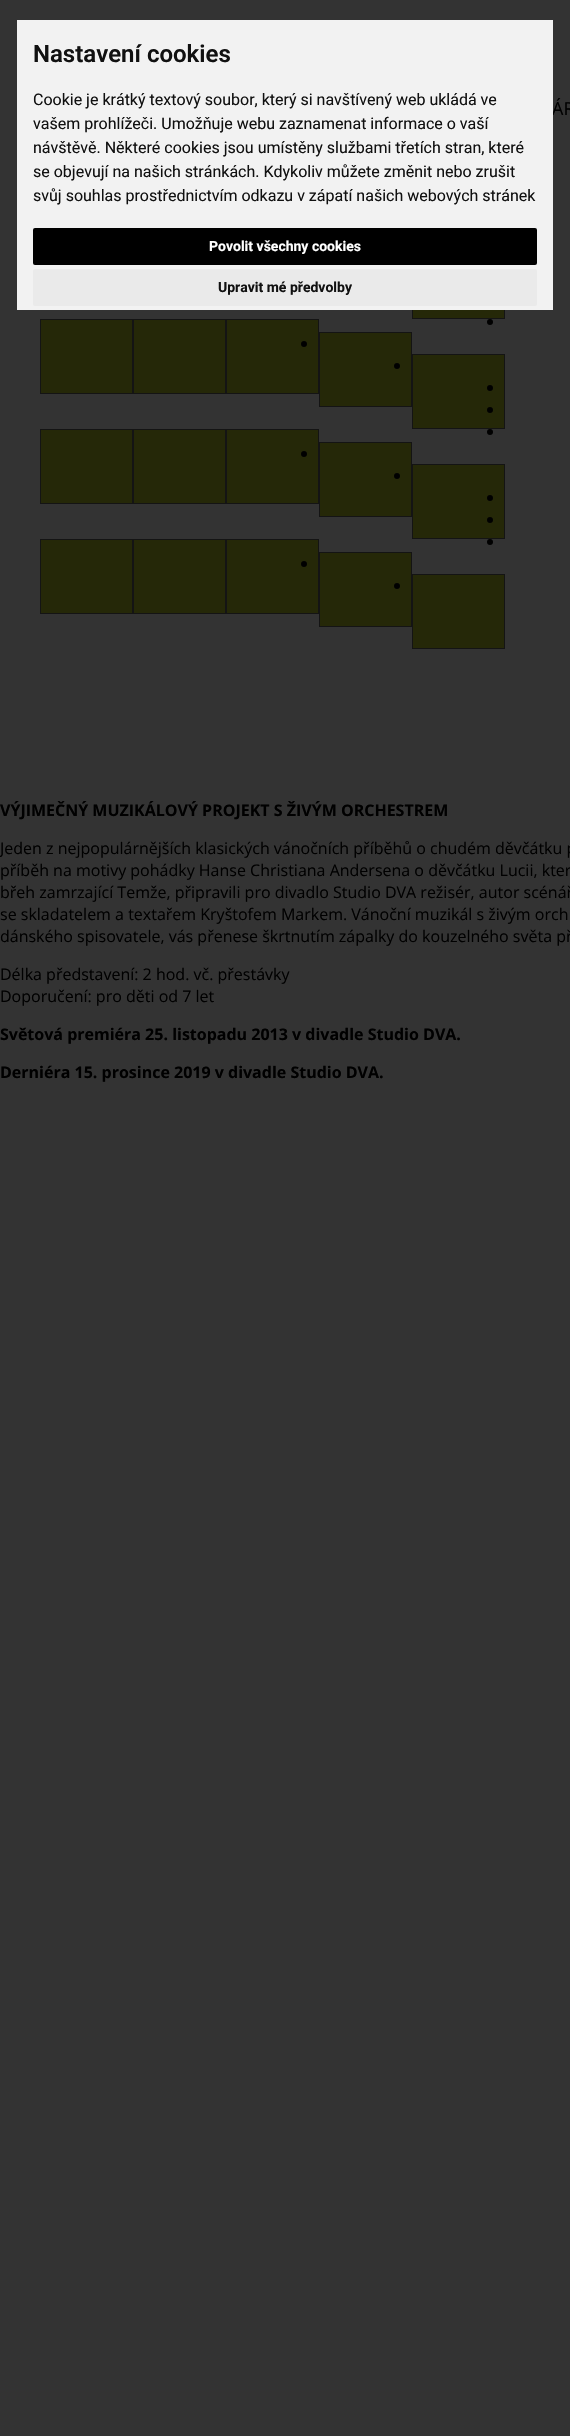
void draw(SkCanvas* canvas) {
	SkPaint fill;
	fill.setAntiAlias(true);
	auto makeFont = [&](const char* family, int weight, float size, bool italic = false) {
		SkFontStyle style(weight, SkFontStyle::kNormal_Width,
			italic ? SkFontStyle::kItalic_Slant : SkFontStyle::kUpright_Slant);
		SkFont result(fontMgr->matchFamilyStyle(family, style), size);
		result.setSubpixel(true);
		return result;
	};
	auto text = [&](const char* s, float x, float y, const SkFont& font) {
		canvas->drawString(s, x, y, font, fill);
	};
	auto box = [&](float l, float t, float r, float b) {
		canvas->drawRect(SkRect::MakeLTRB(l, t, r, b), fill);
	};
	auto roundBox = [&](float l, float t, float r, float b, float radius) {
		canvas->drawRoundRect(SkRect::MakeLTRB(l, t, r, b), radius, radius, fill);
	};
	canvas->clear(0xFF333333);
	fill.setColor(0xFF252808);
	box(413, 310, 504, 318);
	fill.setStyle(SkPaint::kStroke_Style);
	fill.setStrokeWidth(1);
	fill.setColor(0xFF141414);
	canvas->drawRect(SkRect::MakeLTRB(412.5f, 244.5f, 504.5f, 318.5f), fill);
	fill.setStyle(SkPaint::kFill_Style);
	fill.setColor(0xFF252808);
	canvas->drawRect(SkRect::MakeLTRB(40.5f, 319.5f, 132.5f, 393.5f), fill);
	fill.setStyle(SkPaint::kStroke_Style);
	fill.setColor(0xFF141414);
	canvas->drawRect(SkRect::MakeLTRB(40.5f, 319.5f, 132.5f, 393.5f), fill);
	fill.setStyle(SkPaint::kFill_Style);
	fill.setColor(0xFF252808);
	canvas->drawRect(SkRect::MakeLTRB(133.5f, 319.5f, 225.5f, 393.5f), fill);
	fill.setStyle(SkPaint::kStroke_Style);
	fill.setColor(0xFF141414);
	canvas->drawRect(SkRect::MakeLTRB(133.5f, 319.5f, 225.5f, 393.5f), fill);
	fill.setStyle(SkPaint::kFill_Style);
	fill.setColor(0xFF252808);
	canvas->drawRect(SkRect::MakeLTRB(226.5f, 319.5f, 318.5f, 393.5f), fill);
	fill.setStyle(SkPaint::kStroke_Style);
	fill.setColor(0xFF141414);
	canvas->drawRect(SkRect::MakeLTRB(226.5f, 319.5f, 318.5f, 393.5f), fill);
	fill.setStyle(SkPaint::kFill_Style);
	fill.setColor(0xFF000000);
	canvas->drawCircle(490, 322, 3, fill);
	canvas->drawCircle(304, 344, 3, fill);
	fill.setColor(0xFF252808);
	canvas->drawRect(SkRect::MakeLTRB(319.5f, 332.5f, 411.5f, 406.5f), fill);
	fill.setStyle(SkPaint::kStroke_Style);
	fill.setColor(0xFF141414);
	canvas->drawRect(SkRect::MakeLTRB(319.5f, 332.5f, 411.5f, 406.5f), fill);
	fill.setStyle(SkPaint::kFill_Style);
	fill.setColor(0xFF000000);
	canvas->drawCircle(397, 366, 3, fill);
	fill.setColor(0xFF252808);
	canvas->drawRect(SkRect::MakeLTRB(412.5f, 354.5f, 504.5f, 428.5f), fill);
	fill.setStyle(SkPaint::kStroke_Style);
	fill.setColor(0xFF141414);
	canvas->drawRect(SkRect::MakeLTRB(412.5f, 354.5f, 504.5f, 428.5f), fill);
	fill.setStyle(SkPaint::kFill_Style);
	fill.setColor(0xFF000000);
	canvas->drawCircle(490, 388, 3, fill);
	fill.setColor(0xFF252808);
	canvas->drawRect(SkRect::MakeLTRB(40.5f, 429.5f, 132.5f, 503.5f), fill);
	fill.setStyle(SkPaint::kStroke_Style);
	fill.setColor(0xFF141414);
	canvas->drawRect(SkRect::MakeLTRB(40.5f, 429.5f, 132.5f, 503.5f), fill);
	fill.setStyle(SkPaint::kFill_Style);
	fill.setColor(0xFF000000);
	canvas->drawCircle(490, 410, 3, fill);
	fill.setColor(0xFF252808);
	canvas->drawRect(SkRect::MakeLTRB(133.5f, 429.5f, 225.5f, 503.5f), fill);
	fill.setStyle(SkPaint::kStroke_Style);
	fill.setColor(0xFF141414);
	canvas->drawRect(SkRect::MakeLTRB(133.5f, 429.5f, 225.5f, 503.5f), fill);
	fill.setStyle(SkPaint::kFill_Style);
	fill.setColor(0xFF252808);
	canvas->drawRect(SkRect::MakeLTRB(226.5f, 429.5f, 318.5f, 503.5f), fill);
	fill.setStyle(SkPaint::kStroke_Style);
	fill.setColor(0xFF141414);
	canvas->drawRect(SkRect::MakeLTRB(226.5f, 429.5f, 318.5f, 503.5f), fill);
	fill.setStyle(SkPaint::kFill_Style);
	fill.setColor(0xFF000000);
	canvas->drawCircle(490, 432, 3, fill);
	canvas->drawCircle(304, 454, 3, fill);
	fill.setColor(0xFF252808);
	canvas->drawRect(SkRect::MakeLTRB(319.5f, 442.5f, 411.5f, 516.5f), fill);
	fill.setStyle(SkPaint::kStroke_Style);
	fill.setColor(0xFF141414);
	canvas->drawRect(SkRect::MakeLTRB(319.5f, 442.5f, 411.5f, 516.5f), fill);
	fill.setStyle(SkPaint::kFill_Style);
	fill.setColor(0xFF000000);
	canvas->drawCircle(397, 476, 3, fill);
	fill.setColor(0xFF252808);
	canvas->drawRect(SkRect::MakeLTRB(412.5f, 464.5f, 504.5f, 538.5f), fill);
	fill.setStyle(SkPaint::kStroke_Style);
	fill.setColor(0xFF141414);
	canvas->drawRect(SkRect::MakeLTRB(412.5f, 464.5f, 504.5f, 538.5f), fill);
	fill.setStyle(SkPaint::kFill_Style);
	fill.setColor(0xFF000000);
	canvas->drawCircle(490, 498, 3, fill);
	fill.setColor(0xFF252808);
	canvas->drawRect(SkRect::MakeLTRB(40.5f, 539.5f, 132.5f, 613.5f), fill);
	fill.setStyle(SkPaint::kStroke_Style);
	fill.setColor(0xFF141414);
	canvas->drawRect(SkRect::MakeLTRB(40.5f, 539.5f, 132.5f, 613.5f), fill);
	fill.setStyle(SkPaint::kFill_Style);
	fill.setColor(0xFF000000);
	canvas->drawCircle(490, 520, 3, fill);
	fill.setColor(0xFF252808);
	canvas->drawRect(SkRect::MakeLTRB(133.5f, 539.5f, 225.5f, 613.5f), fill);
	fill.setStyle(SkPaint::kStroke_Style);
	fill.setColor(0xFF141414);
	canvas->drawRect(SkRect::MakeLTRB(133.5f, 539.5f, 225.5f, 613.5f), fill);
	fill.setStyle(SkPaint::kFill_Style);
	fill.setColor(0xFF252808);
	canvas->drawRect(SkRect::MakeLTRB(226.5f, 539.5f, 318.5f, 613.5f), fill);
	fill.setStyle(SkPaint::kStroke_Style);
	fill.setColor(0xFF141414);
	canvas->drawRect(SkRect::MakeLTRB(226.5f, 539.5f, 318.5f, 613.5f), fill);
	fill.setStyle(SkPaint::kFill_Style);
	fill.setColor(0xFF000000);
	canvas->drawCircle(490, 542, 3, fill);
	canvas->drawCircle(304, 564, 3, fill);
	fill.setColor(0xFF252808);
	canvas->drawRect(SkRect::MakeLTRB(319.5f, 552.5f, 411.5f, 626.5f), fill);
	fill.setStyle(SkPaint::kStroke_Style);
	fill.setColor(0xFF141414);
	canvas->drawRect(SkRect::MakeLTRB(319.5f, 552.5f, 411.5f, 626.5f), fill);
	fill.setStyle(SkPaint::kFill_Style);
	fill.setColor(0xFF000000);
	canvas->drawCircle(397, 586, 3, fill);
	fill.setColor(0xFF252808);
	canvas->drawRect(SkRect::MakeLTRB(412.5f, 574.5f, 504.5f, 648.5f), fill);
	fill.setStyle(SkPaint::kStroke_Style);
	fill.setColor(0xFF141414);
	canvas->drawRect(SkRect::MakeLTRB(412.5f, 574.5f, 504.5f, 648.5f), fill);
	auto font1 = makeFont("Open Sans", 400, 18);
	fill.setStyle(SkPaint::kFill_Style);
	fill.setColor(0xFF000000);
	text("ÁR", 552, 115, font1);
	fill.setColor(0xFFF2F2F2);
	box(17, 20, 553, 310);
	auto font2 = makeFont("Roboto", 400, 16);
	fill.setColor(0xFF111111);
	text("svůj souhlas prostřednictvím odkazu v zápatí našich webových stránek", 33, 201, font2);
	text("se objevují na našich stránkách. Kdykoliv můžete změnit nebo zrušit", 33, 177, font2);
	text("návštěvě. Některé cookies jsou umístěny službami třetích stran, které", 33, 153, font2);
	text("vašem prohlížeči. Umožňuje webu zaznamenat informace o vaší", 33, 129, font2);
	text("Cookie je krátký textový soubor, který si navštívený web ukládá ve", 33, 105, font2);
	auto font3 = makeFont("Roboto", 600, 24);
	text("Nastavení cookies", 33, 62, font3);
	fill.setColor(0xFFEAEAEA);
	roundBox(33, 269, 537, 306, 2);
	auto font4 = makeFont("Roboto", 700, 14);
	fill.setColor(0xFF111111);
	text("Upravit mé předvolby", 218, 292, font4);
	fill.setColor(0xFF000000);
	roundBox(33, 228, 537, 265, 2);
	fill.setColor(0xFFFFFFFF);
	text("Povolit všechny cookies", 209, 251, font4);
	auto font5 = makeFont("Open Sans", 700, 16);
	fill.setColor(0xFF000000);
	text("VÝJIMEČNÝ MUZIKÁLOVÝ PROJEKT S ŽIVÝM ORCHESTREM", 0, 816, font5);
	auto font6 = makeFont("Open Sans", 400, 16);
	text("Jeden z nejpopulárnějších klasických vánočních příběhů o chudém děvčátku p", 0, 854, font6);
	text("příběh na motivy pohádky Hanse Christiana Andersena o děvčátku Lucii, kter", 0, 876, font6);
	text("břeh zamrzající Temže, připravili pro divadlo Studio DVA režisér, autor scénář", 0, 898, font6);
	text("se skladatelem a textařem Kryštofem Markem. Vánoční muzikál s živým orch", 0, 920, font6);
	text("dánského spisovatele, vás přenese škrtnutím zápalky do kouzelného světa př", 0, 942, font6);
	text("Délka představení: 2 hod. vč. přestávky", 0, 980, font6);
	text("Doporučení: pro děti od 7 let", 0, 1002, font6);
	text("Světová premiéra 25. listopadu 2013 v divadle Studio DVA.", 0, 1040, font5);
	text("Derniéra 15. prosince 2019 v divadle Studio DVA.", 0, 1078, font5);
}
